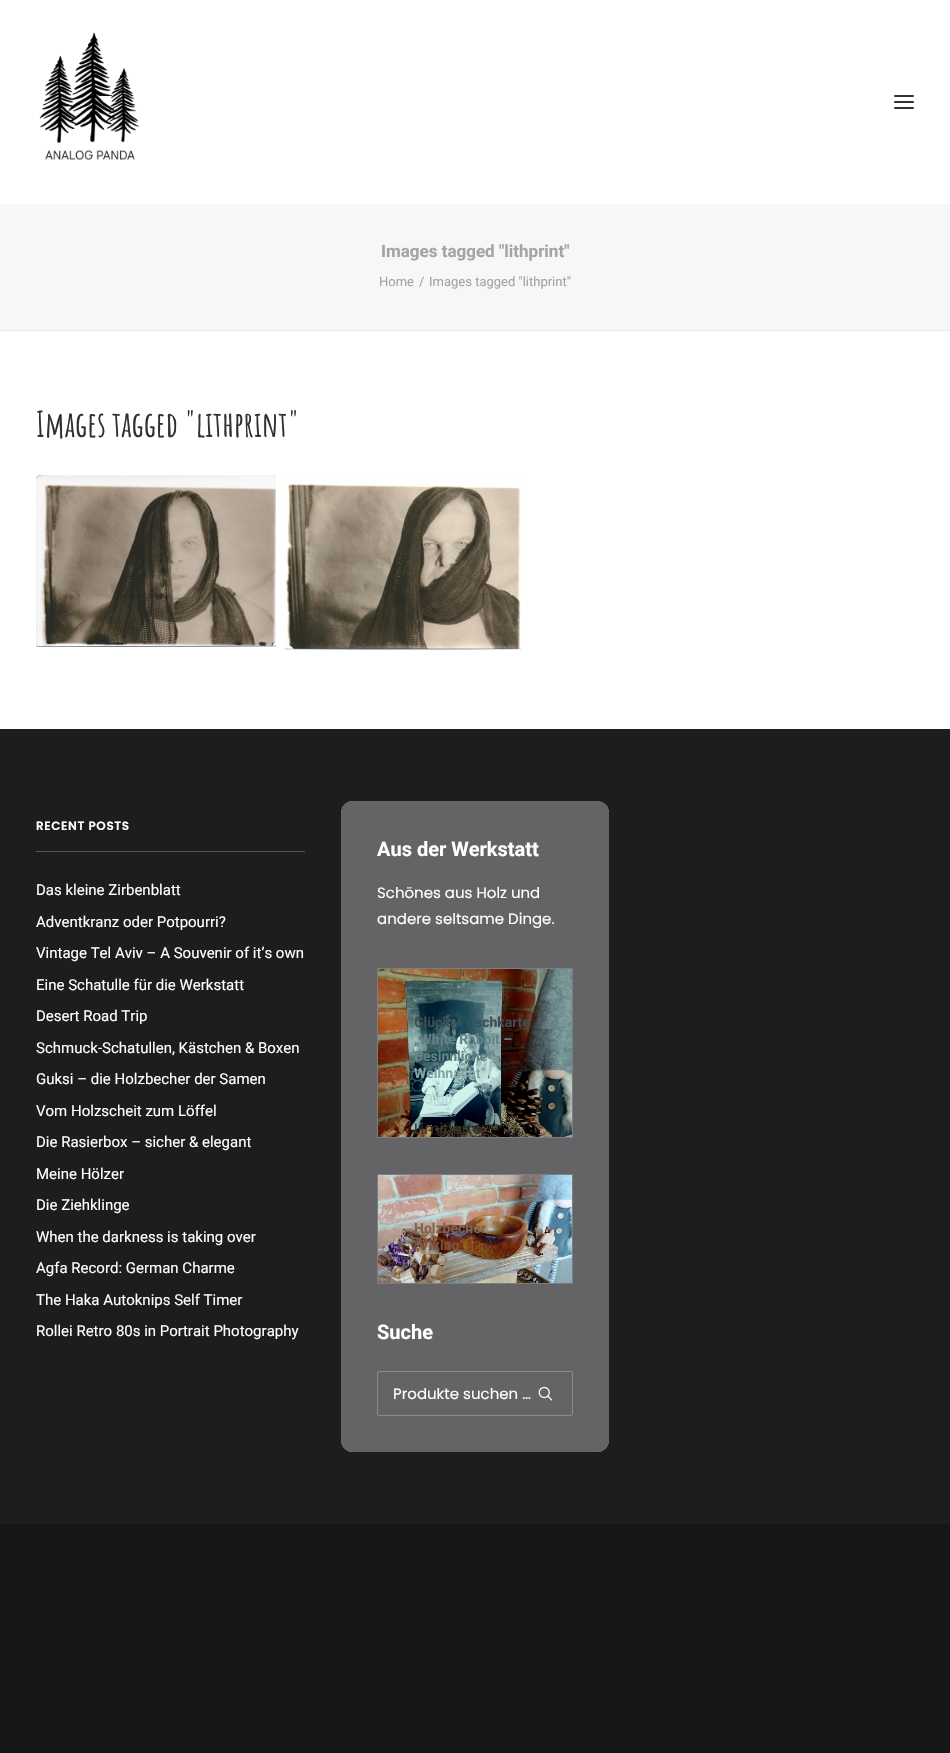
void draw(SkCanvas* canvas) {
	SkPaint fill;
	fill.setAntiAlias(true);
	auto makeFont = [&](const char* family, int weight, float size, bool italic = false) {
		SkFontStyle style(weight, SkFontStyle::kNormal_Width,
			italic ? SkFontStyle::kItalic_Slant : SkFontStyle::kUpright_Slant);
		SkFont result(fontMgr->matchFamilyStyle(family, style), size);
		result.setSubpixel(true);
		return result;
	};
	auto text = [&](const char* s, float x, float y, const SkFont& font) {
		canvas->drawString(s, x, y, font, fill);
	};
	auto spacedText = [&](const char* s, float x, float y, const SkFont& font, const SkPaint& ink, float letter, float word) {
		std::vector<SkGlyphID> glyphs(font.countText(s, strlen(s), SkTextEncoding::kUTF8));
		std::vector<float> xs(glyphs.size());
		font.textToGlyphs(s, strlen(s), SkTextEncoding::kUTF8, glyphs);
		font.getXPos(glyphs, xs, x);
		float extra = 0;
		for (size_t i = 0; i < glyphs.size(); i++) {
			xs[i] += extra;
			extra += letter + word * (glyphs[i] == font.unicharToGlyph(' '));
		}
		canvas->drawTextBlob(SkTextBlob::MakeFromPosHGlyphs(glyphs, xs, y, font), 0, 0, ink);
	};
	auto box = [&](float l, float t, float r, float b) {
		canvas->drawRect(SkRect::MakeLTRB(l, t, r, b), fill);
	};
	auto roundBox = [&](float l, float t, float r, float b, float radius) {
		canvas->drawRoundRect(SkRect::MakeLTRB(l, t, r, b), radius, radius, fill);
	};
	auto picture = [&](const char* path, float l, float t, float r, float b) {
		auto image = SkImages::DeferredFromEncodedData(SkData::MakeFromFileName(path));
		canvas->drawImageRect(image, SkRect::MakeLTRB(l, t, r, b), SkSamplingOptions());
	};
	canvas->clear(0xFF141618);
	fill.setColor(0xFFFFFFFF);
	box(0, 0, 950, 204);
	picture("image0.png", 39, 32, 140, 160);
	fill.setColor(0xFF303133);
	roundBox(894, 101, 914, 103, 1);
	roundBox(894, 95, 914, 97, 1);
	roundBox(894, 107, 914, 109, 1);
	fill.setColor(0xFFF7F7F7);
	box(0, 204, 950, 330);
	fill.setColor(0xFFEAEAEA);
	box(0, 330, 950, 331);
	fill.setColor(0xFFFFFFFF);
	box(0, 331, 950, 729);
	picture("image1.png", 36, 475, 276, 647);
	picture("image2.png", 282, 475, 521, 652);
	fill.setColor(0xFF1B1D1F);
	box(0, 729, 950, 1524);
	fill.setColor(0xFF545657);
	box(36, 851, 305, 852);
	fill.setColor(0xFFDDDDDD);
	roundBox(341, 801, 609, 1452, 12);
	fill.setColor(0xB3303133);
	roundBox(341, 801, 609, 1452, 12);
	fill.setStyle(SkPaint::kStroke_Style);
	fill.setStrokeWidth(1);
	fill.setColor(0xFF7A7D82);
	canvas->drawRect(SkRect::MakeLTRB(377.5f, 968.5f, 572.5f, 1137.5f), fill);
	picture("image3.png", 378, 969, 572, 1137);
	canvas->drawRect(SkRect::MakeLTRB(377.5f, 1174.5f, 572.5f, 1283.5f), fill);
	picture("image4.png", 378, 1175, 572, 1283);
	fill.setColor(0xFF8B8B8C);
	canvas->drawRoundRect(SkRect::MakeLTRB(377.5f, 1371.5f, 572.5f, 1415.5f), 1.5f, 1.5f, fill);
	picture("image5.png", 538, 1386, 553, 1401);
	auto font1 = makeFont("Roboto", 700, 17);
	fill.setStyle(SkPaint::kFill_Style);
	fill.setColor(0xFFA4A4A4);
	text("Images tagged \"lithprint\"", 381, 257, font1);
	auto font2 = makeFont("Roboto", 400, 13);
	text("Home", 379, 286, font2);
	text("/", 419, 286, font2);
	text("Images tagged \"lithprint\"", 429, 286, font2);
	auto font3 = makeFont("Amatic SC", 700, 35);
	fill.setColor(0xFF303133);
	text("Images tagged \"lithprint\"", 36, 437, font3);
	auto font4 = makeFont("Poppins", 600, 12);
	fill.setColor(0xFFFFFFFF);
	spacedText("RECENT POSTS", 36, 830, font4, fill, 0.6f, 0);
	auto font5 = makeFont("Roboto", 400, 15);
	text("Das kleine Zirbenblatt", 36, 895, font5);
	text("Adventkranz oder Potpourri?", 36, 927, font5);
	text("Vintage Tel Aviv – A Souvenir of it’s own", 36, 958, font5);
	text("Eine Schatulle für die Werkstatt", 36, 990, font5);
	text("Desert Road Trip", 36, 1021, font5);
	text("Schmuck-Schatullen, Kästchen & Boxen", 36, 1053, font5);
	text("Guksi – die Holzbecher der Samen", 36, 1084, font5);
	text("Vom Holzscheit zum Löffel", 36, 1116, font5);
	text("Die Rasierbox – sicher & elegant", 36, 1147, font5);
	text("Meine Hölzer", 36, 1179, font5);
	text("Die Ziehklinge", 36, 1210, font5);
	text("When the darkness is taking over", 36, 1242, font5);
	text("Agfa Record: German Charme", 36, 1273, font5);
	text("The Haka Autoknips Self Timer", 36, 1305, font5);
	text("Rollei Retro 80s in Portrait Photography", 36, 1336, font5);
	auto font6 = makeFont("Roboto", 700, 20);
	text("Aus der Werkstatt", 377, 856, font6);
	auto font7 = makeFont("Poppins", 400, 15);
	text("Schönes aus Holz und", 377, 898, font7);
	text("andere seltsame Dinge.", 377, 924, font7);
	auto font8 = makeFont("Roboto", 700, 14);
	fill.setColor(0xFF3D4E52);
	text("Glückw", 414, 1027, font8);
	text("schkarte", 475, 1027, font8);
	fill.setColor(0xFF638486);
	text("„White Rabbit –", 414, 1044, font8);
	text("Besinnliche", 414, 1061, font8);
	fill.setColor(0xFF84A5A7);
	text("Weihnacht“", 414, 1078, font8);
	fill.setColor(0xFFB8DCD7);
	text("3,00", 425, 1104, font8);
	fill.setColor(0xFF383329);
	text("Limitierte", 414, 1134, font7);
	fill.setColor(0xFF836151);
	text("Holzbecher", 414, 1233, font8);
	fill.setColor(0xFF7A523A);
	text("„Viking“", 414, 1250, font8);
	fill.setColor(0xFF908472);
	text("1", 425, 1275, font8);
	fill.setColor(0xFFFFFFFF);
	text("Suche", 377, 1339, font6);
	text("Produkte suchen …", 393, 1399, font7);
}
